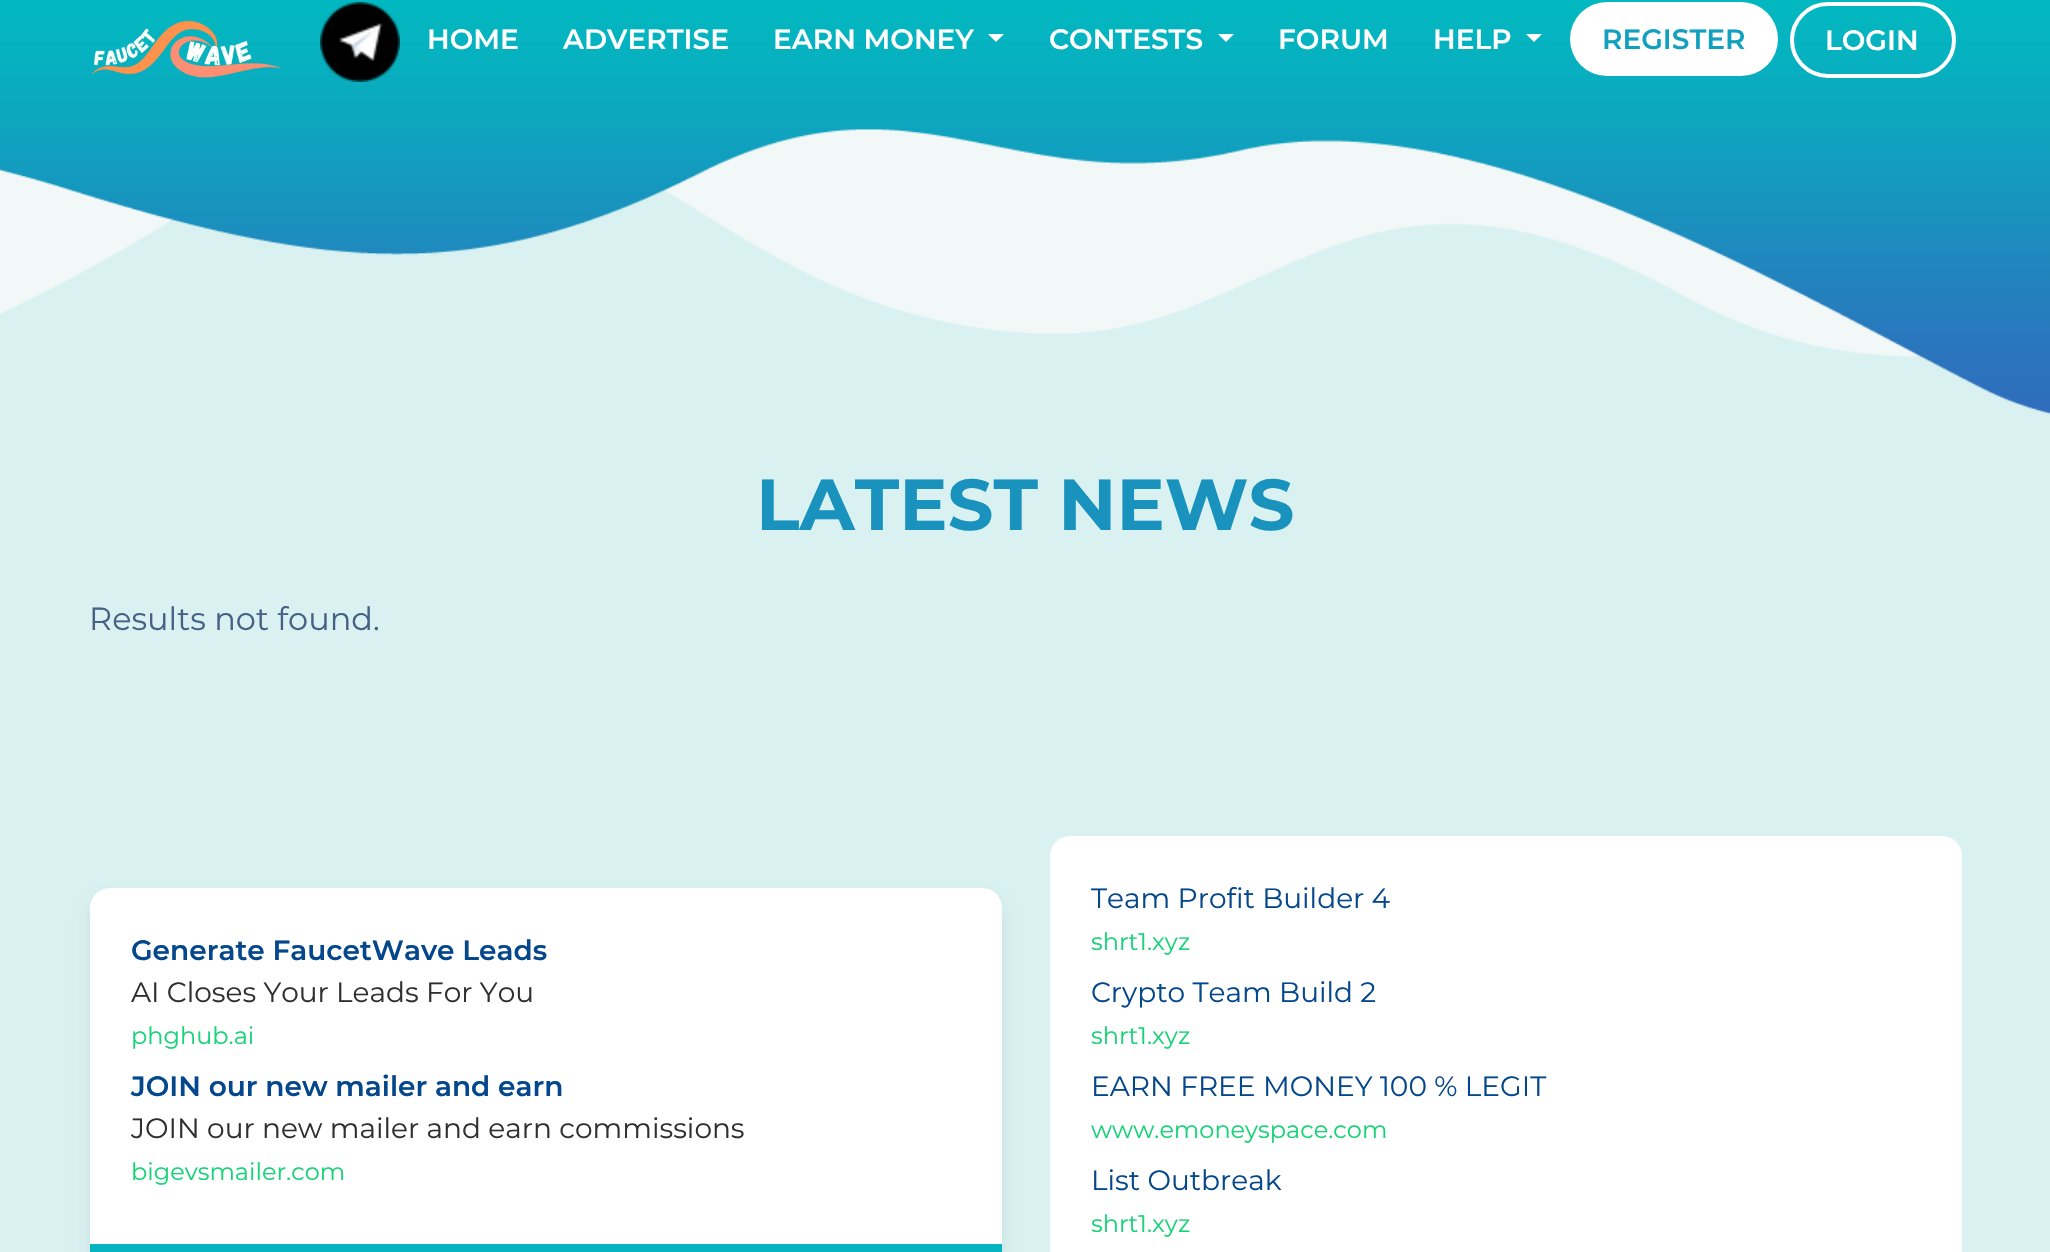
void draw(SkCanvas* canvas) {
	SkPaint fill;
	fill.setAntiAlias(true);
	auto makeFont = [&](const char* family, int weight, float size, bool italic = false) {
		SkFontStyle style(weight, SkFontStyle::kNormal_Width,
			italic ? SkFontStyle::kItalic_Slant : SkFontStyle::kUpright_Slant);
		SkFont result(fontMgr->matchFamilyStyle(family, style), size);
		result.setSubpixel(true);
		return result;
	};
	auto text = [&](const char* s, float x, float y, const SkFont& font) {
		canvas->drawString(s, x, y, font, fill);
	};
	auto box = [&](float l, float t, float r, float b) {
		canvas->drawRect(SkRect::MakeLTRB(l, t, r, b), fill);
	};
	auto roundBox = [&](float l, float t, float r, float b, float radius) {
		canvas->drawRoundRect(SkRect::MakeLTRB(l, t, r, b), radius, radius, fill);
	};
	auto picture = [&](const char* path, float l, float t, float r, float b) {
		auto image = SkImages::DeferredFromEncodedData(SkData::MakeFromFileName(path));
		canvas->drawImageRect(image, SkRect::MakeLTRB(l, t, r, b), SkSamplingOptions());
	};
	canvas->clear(0xFFD9F2F1);
	picture("image0.png", 0, 0, 2050, 415);
	picture("image1.png", 91, 20, 281, 78);
	picture("image2.png", 320, 2, 400, 82);
	fill.setColor(0xFFFFFFFF);
	canvas->drawPath(SkPathBuilder().moveTo(988, 34).lineTo(1004, 34).lineTo(996, 42).close().detach(), fill);
	canvas->drawPath(SkPathBuilder().moveTo(1218, 34).lineTo(1234, 34).lineTo(1226, 42).close().detach(), fill);
	canvas->drawPath(SkPathBuilder().moveTo(1526, 34).lineTo(1542, 34).lineTo(1534, 42).close().detach(), fill);
	roundBox(1570, 2, 1778, 76, 37);
	fill.setStyle(SkPaint::kStroke_Style);
	fill.setStrokeWidth(4);
	canvas->drawRoundRect(SkRect::MakeLTRB(1792, 4, 1954, 76), 36, 36, fill);
	fill.setStyle(SkPaint::kFill_Style);
	fill.setColor(0x14000000);
	fill.setMaskFilter(SkMaskFilter::MakeBlur(kNormal_SkBlurStyle, 8));
	canvas->drawRoundRect(SkRect::MakeLTRB(90, 900, 1002, 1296), 20, 20, fill);
	fill.setMaskFilter(nullptr);
	fill.setColor(0xFFFFFFFF);
	roundBox(90, 888, 1002, 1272, 20);
	fill.setColor(0xFF05B4C0);
	box(90, 1244, 1002, 1252);
	fill.setColor(0xFFFFFFFF);
	roundBox(1050, 836, 1962, 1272, 20);
	auto font1 = makeFont("Montserrat", 600, 28);
	text("HOME", 427, 49, font1);
	text("ADVERTISE", 563, 49, font1);
	text("EARN MONEY", 773, 49, font1);
	text("CONTESTS", 1049, 49, font1);
	text("FORUM", 1278, 49, font1);
	text("HELP", 1433, 49, font1);
	fill.setColor(0xFF11A0BF);
	text("REGISTER", 1602, 49, font1);
	fill.setColor(0xFFFFFFFF);
	text("LOGIN", 1825, 50, font1);
	auto font2 = makeFont("Montserrat", 700, 72);
	fill.setColor(0xFF1992BE);
	text("LATEST NEWS", 756, 530, font2);
	auto font3 = makeFont("Montserrat", 400, 32);
	fill.setColor(0xFF476085);
	text("Results not found.", 89, 630, font3);
	fill.setColor(0xFF04478C);
	text("Generate FaucetWave Leads", 131, 960, font1);
	auto font4 = makeFont("Montserrat", 400, 28);
	fill.setColor(0xFF303030);
	text("AI Closes Your Leads For You", 131, 1002, font4);
	auto font5 = makeFont("Montserrat", 400, 24);
	fill.setColor(0xFF15D376);
	text("phghub.ai", 131, 1044, font5);
	fill.setColor(0xFF04478C);
	text("JOIN our new mailer and earn", 131, 1096, font1);
	fill.setColor(0xFF303030);
	text("JOIN our new mailer and earn commissions", 131, 1138, font4);
	fill.setColor(0xFF15D376);
	text("bigevsmailer.com", 131, 1180, font5);
	fill.setColor(0xFF04478C);
	text("Team Profit Builder 4", 1091, 908, font4);
	fill.setColor(0xFF15D376);
	text("shrt1.xyz", 1091, 950, font5);
	fill.setColor(0xFF04478C);
	text("Crypto Team Build 2", 1091, 1002, font4);
	fill.setColor(0xFF15D376);
	text("shrt1.xyz", 1091, 1044, font5);
	fill.setColor(0xFF04478C);
	text("EARN FREE MONEY 100 % LEGIT", 1091, 1096, font4);
	fill.setColor(0xFF15D376);
	text("www.emoneyspace.com", 1091, 1138, font5);
	fill.setColor(0xFF04478C);
	text("List Outbreak", 1091, 1190, font4);
	fill.setColor(0xFF15D376);
	text("shrt1.xyz", 1091, 1232, font5);
}
